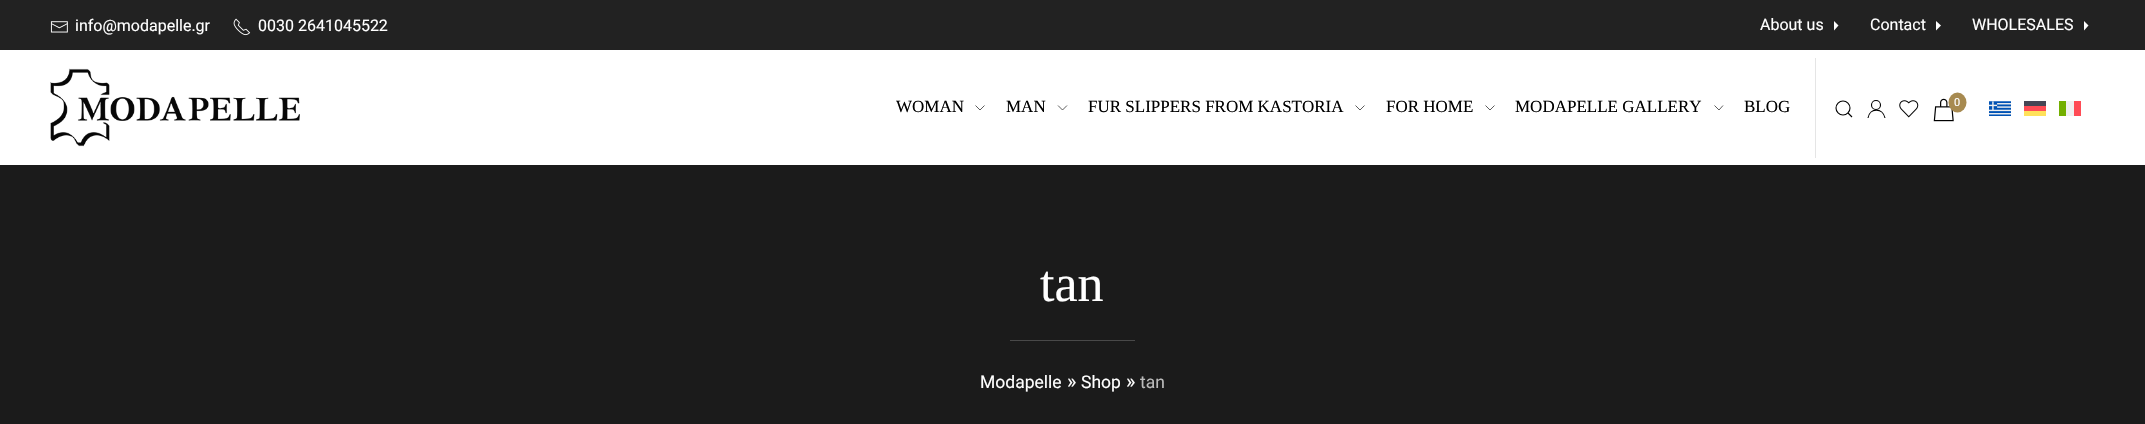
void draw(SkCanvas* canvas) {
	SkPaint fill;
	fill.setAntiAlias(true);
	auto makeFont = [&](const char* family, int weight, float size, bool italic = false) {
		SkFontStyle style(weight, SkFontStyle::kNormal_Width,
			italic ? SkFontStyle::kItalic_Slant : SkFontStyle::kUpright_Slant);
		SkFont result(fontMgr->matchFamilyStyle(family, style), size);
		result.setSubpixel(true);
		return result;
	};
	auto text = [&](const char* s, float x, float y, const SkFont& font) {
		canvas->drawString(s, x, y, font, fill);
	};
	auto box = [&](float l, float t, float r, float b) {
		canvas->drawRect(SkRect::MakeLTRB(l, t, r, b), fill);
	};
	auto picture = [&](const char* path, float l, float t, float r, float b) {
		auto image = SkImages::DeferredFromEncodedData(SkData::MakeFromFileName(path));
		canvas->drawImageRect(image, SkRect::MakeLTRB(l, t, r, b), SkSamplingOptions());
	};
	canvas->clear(0xFFFFFFFF);
	fill.setColor(0xFF222222);
	box(0, 0, 2145, 50);
	picture("image0.png", 50, 21, 68, 33);
	picture("image1.png", 233, 18, 251, 36);
	fill.setColor(0xFFFFFFFF);
	canvas->drawPath(SkPathBuilder().moveTo(1834, 21).lineTo(1838.5f, 25.5f).lineTo(1834, 30.5f).close().detach(), fill);
	canvas->drawPath(SkPathBuilder().moveTo(1936, 21).lineTo(1941, 25.5f).lineTo(1936, 30.5f).close().detach(), fill);
	canvas->drawPath(SkPathBuilder().moveTo(2084, 21).lineTo(2088.5f, 25.5f).lineTo(2084, 30.5f).close().detach(), fill);
	picture("image2.png", 50, 68, 300, 147);
	fill.setStyle(SkPaint::kStroke_Style);
	fill.setStrokeWidth(0.8f);
	fill.setColor(0xFF333333);
	canvas->drawPath(SkPathBuilder().moveTo(975.5f, 105.5f).lineTo(980, 110).lineTo(984.5f, 105.5f).detach(), fill);
	canvas->drawPath(SkPathBuilder().moveTo(1058, 105.5f).lineTo(1062.5f, 110).lineTo(1067, 105.5f).detach(), fill);
	canvas->drawPath(SkPathBuilder().moveTo(1355.5f, 105.5f).lineTo(1360, 110).lineTo(1364.5f, 105.5f).detach(), fill);
	canvas->drawPath(SkPathBuilder().moveTo(1485.5f, 105.5f).lineTo(1490, 110).lineTo(1494.5f, 105.5f).detach(), fill);
	canvas->drawPath(SkPathBuilder().moveTo(1714.5f, 105.5f).lineTo(1719, 110).lineTo(1723, 105.5f).detach(), fill);
	fill.setStyle(SkPaint::kFill_Style);
	fill.setColor(0xFFE5E5E5);
	box(1815, 58, 1816, 158);
	fill.setStyle(SkPaint::kStroke_Style);
	fill.setStrokeWidth(1.1f);
	fill.setColor(0xFF000000);
	canvas->drawCircle(1843, 108, 7, fill);
	canvas->drawPath(SkPathBuilder().moveTo(1848, 113).lineTo(1852, 117).close().detach(), fill);
	canvas->drawCircle(1876, 105, 4.5f, fill);
	canvas->drawPath(SkPathBuilder().moveTo(1868, 118).cubicTo(1869.5f, 107.5f, 1883, 107.5f, 1885, 118).detach(), fill);
	picture("image3.png", 1899, 100, 1919, 118);
	picture("image4.png", 1933, 98, 1954, 122);
	fill.setStyle(SkPaint::kFill_Style);
	fill.setColor(0xFFA78A50);
	canvas->drawOval(SkRect::MakeLTRB(1948.5f, 92.5f, 1966.5f, 112.5f), fill);
	picture("image5.png", 1989, 101, 2011, 116);
	fill.setColor(0xFF464655);
	box(2024, 101, 2046, 106);
	fill.setColor(0xFFFF4B55);
	box(2024, 106, 2046, 111);
	fill.setColor(0xFFFFE15A);
	box(2024, 111, 2046, 116);
	fill.setColor(0xFF73AF00);
	box(2059, 101, 2066, 116);
	fill.setColor(0xFFF0F0F0);
	box(2066, 101, 2074, 116);
	fill.setColor(0xFFFF4B55);
	box(2074, 101, 2081, 116);
	fill.setColor(0xFF1B1B1B);
	box(0, 165, 2145, 424);
	fill.setColor(0xFF494949);
	box(1010, 340, 1135, 341);
	auto font1 = makeFont("Roboto", 400, 16);
	fill.setColor(0xFFFFFFFF);
	text("info@modapelle.gr", 75, 31, font1);
	text("0030 2641045522", 258, 31, font1);
	text("About us", 1760, 30, font1);
	text("Contact", 1870, 30, font1);
	text("WHOLESALES", 1972, 30, font1);
	auto font2 = makeFont("Tinos", 400, 17);
	fill.setColor(0xFF000000);
	text("WOMAN", 896, 112, font2);
	text("MAN", 1006, 112, font2);
	text("FUR SLIPPERS FROM KASTORIA", 1088, 112, font2);
	text("FOR HOME", 1386, 112, font2);
	text("MODAPELLE GALLERY", 1515, 112, font2);
	text("BLOG", 1744, 112, font2);
	auto font3 = makeFont("Roboto", 400, 11);
	fill.setColor(0xFFFFFFFF);
	text("0", 1954, 106, font3);
	auto font4 = makeFont("Tinos", 400, 52);
	text("tan", 1040, 301, font4);
	auto font5 = makeFont("Roboto", 400, 17.5f);
	text("Modapelle", 980, 388, font5);
	auto font6 = makeFont("Roboto", 400, 20);
	text("»", 1067, 388, font6);
	text("Shop", 1081, 388, font5);
	text("»", 1126, 388, font6);
	fill.setColor(0xFFBBBBBB);
	text("tan", 1140, 388, font5);
}
